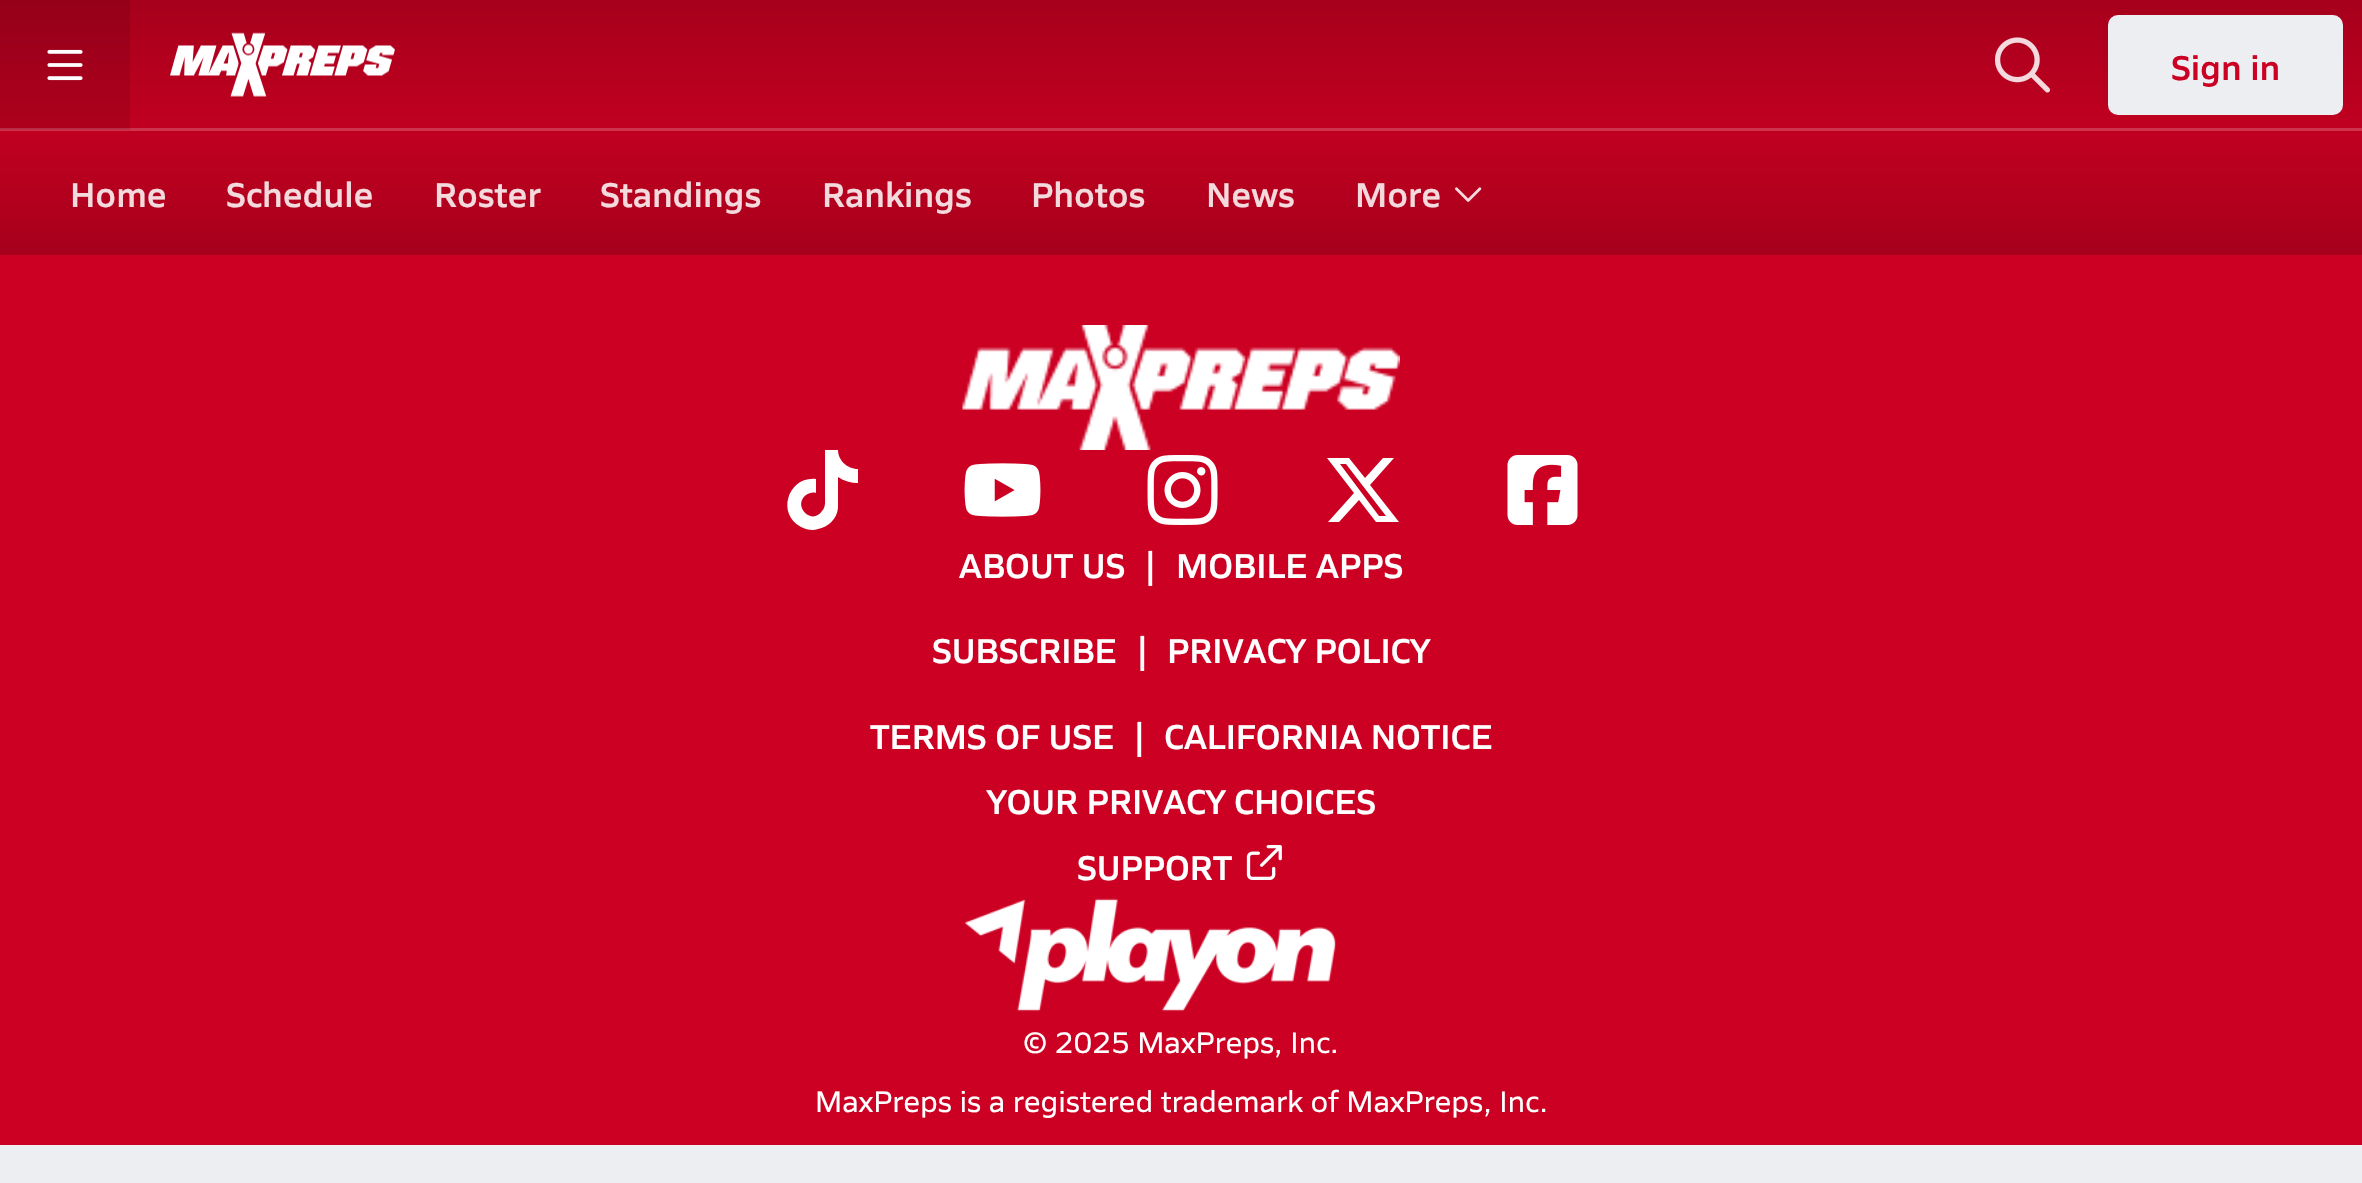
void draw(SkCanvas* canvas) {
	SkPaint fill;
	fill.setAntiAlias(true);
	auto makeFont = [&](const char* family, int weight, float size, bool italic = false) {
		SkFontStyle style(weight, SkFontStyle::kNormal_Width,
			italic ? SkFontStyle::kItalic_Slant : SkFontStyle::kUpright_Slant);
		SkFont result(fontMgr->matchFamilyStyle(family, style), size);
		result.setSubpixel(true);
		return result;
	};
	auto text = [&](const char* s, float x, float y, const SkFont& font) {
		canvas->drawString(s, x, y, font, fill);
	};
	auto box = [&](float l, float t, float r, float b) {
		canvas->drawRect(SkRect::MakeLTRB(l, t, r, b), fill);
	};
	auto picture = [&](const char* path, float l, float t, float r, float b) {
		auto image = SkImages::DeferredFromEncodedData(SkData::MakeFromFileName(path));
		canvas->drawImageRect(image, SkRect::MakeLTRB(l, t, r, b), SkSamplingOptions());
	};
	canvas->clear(0xFFEDEEF2);
	{
		const SkColor colors[] = {0xFFA6001C, 0xFFC10020};
		const float stops[] = {0, 1};
		const SkPoint ends[] = {{1181, 0}, {1181, 130}};
		fill.setShader(SkGradientShader::MakeLinear(ends, colors, stops, 2, SkTileMode::kClamp));
		fill.setAlpha(255);
	}
	box(130, 0, 2362, 128);
	{
		const SkColor colors[] = {0xFF950019, 0xFFAE001D};
		const float stops[] = {0, 1};
		const SkPoint ends[] = {{1181, 0}, {1181, 130}};
		fill.setShader(SkGradientShader::MakeLinear(ends, colors, stops, 2, SkTileMode::kClamp));
		fill.setAlpha(255);
	}
	box(0, 0, 130, 128);
	picture("image0.png", 47, 49, 83, 81);
	picture("image1.png", 170, 32, 395, 97);
	picture("image2.png", 1994, 37, 2050, 93);
	fill.setShader(nullptr);
	fill.setColor(0xFFEDEEF2);
	canvas->drawRoundRect(SkRect::MakeLTRB(2109.5f, 16.5f, 2341.5f, 113.5f), 8.5f, 8.5f, fill);
	fill.setStyle(SkPaint::kStroke_Style);
	fill.setStrokeWidth(3);
	canvas->drawRoundRect(SkRect::MakeLTRB(2109.5f, 16.5f, 2341.5f, 113.5f), 8.5f, 8.5f, fill);
	fill.setStyle(SkPaint::kFill_Style);
	fill.setColor(0xFFCD334D);
	box(0, 128, 2362, 131);
	fill.setColor(0xFFB92E45);
	box(0, 128, 130, 130);
	{
		const SkColor colors[] = {0xFFC10020, 0xFFA6001C};
		const float stops[] = {0, 1};
		const SkPoint ends[] = {{1181, 130}, {1181, 255}};
		fill.setShader(SkGradientShader::MakeLinear(ends, colors, stops, 2, SkTileMode::kClamp));
		fill.setAlpha(255);
	}
	box(0, 131, 2362, 255);
	picture("image3.png", 1455, 187, 1482, 202);
	fill.setShader(nullptr);
	fill.setColor(0xFFCC0022);
	box(0, 255, 2362, 1145);
	picture("image4.png", 962, 325, 1400, 450);
	fill.setColor(0xFFFFFFFF);
	canvas->drawPath(SkPathBuilder().moveTo(858, 483).cubicTo(851, 483, 844, 481, 838, 477).lineTo(838, 508).cubicTo(837, 519, 828, 527, 818, 529).cubicTo(813, 531, 807, 530, 801, 527).cubicTo(776, 514, 788, 476, 816, 479).lineTo(816, 493).cubicTo(813, 492, 809, 493, 806, 495).cubicTo(792, 506, 812, 526, 822, 511).cubicTo(826, 507, 825, 501, 825, 495).lineTo(825, 450).lineTo(838, 450).cubicTo(838, 460, 847, 469, 858, 469).close().detach(), fill);
	picture("image5.png", 964, 463, 1041, 517);
	picture("image6.png", 1147, 455, 1218, 525);
	canvas->drawPath(SkPathBuilder().moveTo(1383, 458).lineTo(1394, 458).lineTo(1370, 485).lineTo(1399, 522).lineTo(1376, 522).lineTo(1359, 500).lineTo(1339, 522).lineTo(1328, 522).lineTo(1354, 493).lineTo(1327, 458).lineTo(1349, 458).lineTo(1365, 478).close().moveTo(1379, 516).lineTo(1386, 516).lineTo(1346, 464).lineTo(1340, 464).close().detach(), fill);
	picture("image7.png", 1507, 455, 1578, 525);
	picture("image8.png", 1246, 845, 1282, 880);
	picture("image9.png", 964, 898, 1336, 1012);
	auto font1 = makeFont("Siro", 600, 35);
	fill.setColor(0xFFCC0022);
	text("Sign in", 2171, 80, font1);
	fill.setColor(0xFFF4D9DD);
	text("Home", 70, 207, font1);
	text("Schedule", 226, 207, font1);
	text("Roster", 434, 207, font1);
	text("Standings", 600, 207, font1);
	text("Rankings", 822, 207, font1);
	text("Photos", 1031, 207, font1);
	text("News", 1206, 207, font1);
	text("More", 1355, 207, font1);
	fill.setColor(0xFFFFFFFF);
	text("ABOUT US", 959, 578, font1);
	text("|", 1145, 578, font1);
	text("MOBILE APPS", 1176, 578, font1);
	text("SUBSCRIBE", 932, 663, font1);
	text("|", 1137, 663, font1);
	text("PRIVACY POLICY", 1167, 663, font1);
	text("TERMS OF USE", 870, 749, font1);
	text("|", 1134, 749, font1);
	text("CALIFORNIA NOTICE", 1164, 749, font1);
	text("YOUR PRIVACY CHOICES", 987, 814, font1);
	text("SUPPORT", 1077, 880, font1);
	auto font2 = makeFont("Siro", 400, 30);
	text("© 2025 MaxPreps, Inc.", 1023, 1053, font2);
	text("MaxPreps is a registered trademark of MaxPreps, Inc.", 815, 1112, font2);
}
